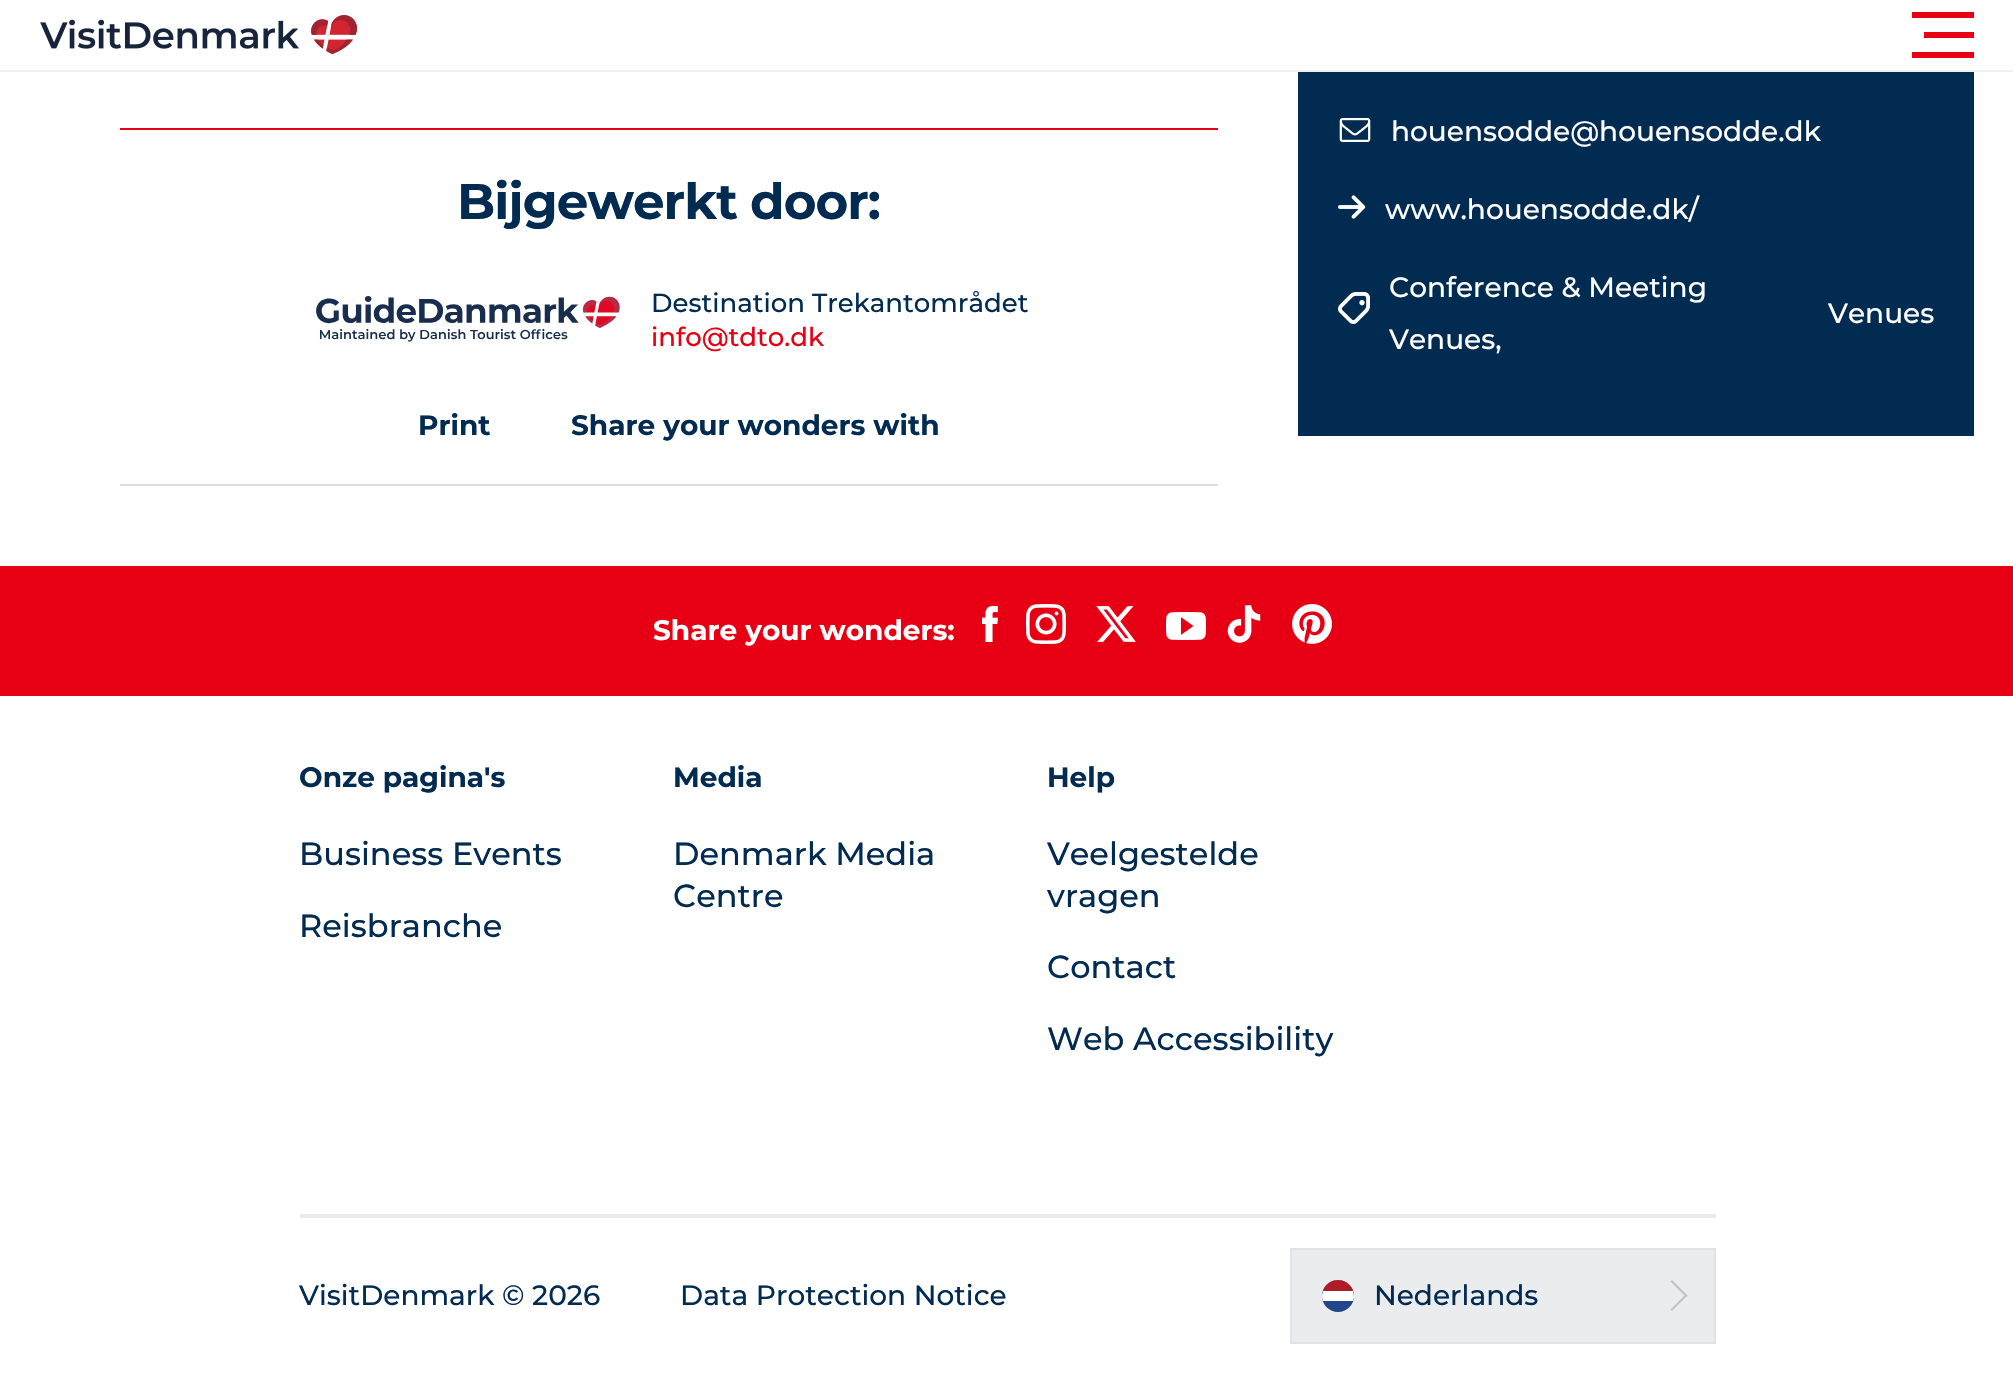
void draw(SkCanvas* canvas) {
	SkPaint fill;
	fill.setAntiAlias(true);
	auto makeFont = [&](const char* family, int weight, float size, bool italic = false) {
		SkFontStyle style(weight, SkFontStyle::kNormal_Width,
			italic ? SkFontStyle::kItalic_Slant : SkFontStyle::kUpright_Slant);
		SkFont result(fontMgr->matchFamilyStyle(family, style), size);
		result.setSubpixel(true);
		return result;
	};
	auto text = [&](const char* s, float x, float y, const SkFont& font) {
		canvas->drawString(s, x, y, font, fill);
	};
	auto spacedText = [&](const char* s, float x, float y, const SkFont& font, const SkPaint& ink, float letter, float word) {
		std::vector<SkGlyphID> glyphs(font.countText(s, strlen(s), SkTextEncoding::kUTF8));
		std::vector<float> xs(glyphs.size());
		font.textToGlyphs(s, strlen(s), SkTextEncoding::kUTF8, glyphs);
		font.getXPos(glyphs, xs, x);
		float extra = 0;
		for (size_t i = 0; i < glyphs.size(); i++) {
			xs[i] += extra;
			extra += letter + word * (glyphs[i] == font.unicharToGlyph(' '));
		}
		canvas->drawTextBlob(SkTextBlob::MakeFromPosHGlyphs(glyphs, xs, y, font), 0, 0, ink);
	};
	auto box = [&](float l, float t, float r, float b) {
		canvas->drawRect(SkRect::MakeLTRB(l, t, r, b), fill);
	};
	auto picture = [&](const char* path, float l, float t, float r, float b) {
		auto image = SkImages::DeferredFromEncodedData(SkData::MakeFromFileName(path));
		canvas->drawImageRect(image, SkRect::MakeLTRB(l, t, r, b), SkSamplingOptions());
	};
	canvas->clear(0xFFFFFFFF);
	fill.setColor(0xFFF0F1F3);
	box(0, 70, 2013, 72);
	picture("image0.png", 40, 15, 357, 54);
	fill.setColor(0xFFE70013);
	box(1912, 12, 1974, 18);
	box(1924, 32, 1974, 38);
	box(1912, 52, 1974, 58);
	box(120, 128, 1218, 130);
	fill.setColor(0xFFDEDCDA);
	box(120, 484, 1218, 486);
	picture("image1.png", 316, 296, 620, 342);
	fill.setColor(0xFF022B52);
	box(1298, 72, 1974, 436);
	picture("image2.png", 1339, 118, 1371, 142);
	picture("image3.png", 1338, 195, 1366, 219);
	picture("image4.png", 1338, 292, 1370, 324);
	fill.setColor(0xFFE70013);
	box(0, 566, 2013, 696);
	picture("image5.png", 982, 606, 998, 642);
	picture("image6.png", 1026, 604, 1066, 644);
	picture("image7.png", 1096, 606, 1136, 642);
	picture("image8.png", 1166, 612, 1206, 640);
	picture("image9.png", 1227, 605, 1261, 643);
	picture("image10.png", 1292, 604, 1332, 644);
	fill.setColor(0xFFE7EAEC);
	box(300, 1214, 1716, 1218);
	fill.setColor(0xFFEAECEE);
	canvas->drawRect(SkRect::MakeLTRB(1291, 1249, 1715, 1343), fill);
	fill.setStyle(SkPaint::kStroke_Style);
	fill.setStrokeWidth(2);
	fill.setColor(0xFFE1E2E3);
	canvas->drawRect(SkRect::MakeLTRB(1291, 1249, 1715, 1343), fill);
	fill.setStyle(SkPaint::kFill_Style);
	fill.setColor(0xFF21468B);
	canvas->drawCircle(1338, 1296, 16, fill);
	canvas->save();
	canvas->clipPath(SkPathBuilder().moveTo(1338, 1280).cubicTo(1347, 1280, 1354, 1287, 1354, 1296).cubicTo(1354, 1305, 1347, 1312, 1338, 1312).cubicTo(1329, 1312, 1322, 1305, 1322, 1296).cubicTo(1322, 1287, 1329, 1280, 1338, 1280).close().detach(), true);
	fill.setColor(0xFFFFFFFF);
	canvas->drawPath(SkPathBuilder().moveTo(1338, 1280).cubicTo(1347, 1280, 1354, 1287, 1354, 1296).lineTo(1354, 1301).lineTo(1322, 1301).lineTo(1322, 1296).cubicTo(1322, 1287, 1329, 1280, 1338, 1280).close().detach(), fill);
	fill.setColor(0xFFAE1C28);
	box(1322, 1280, 1354, 1291);
	canvas->restore();
	fill.setColor(0xFFC1C4C7);
	canvas->drawPath(SkPathBuilder().moveTo(1672, 1280).lineTo(1687.5f, 1295.5f).lineTo(1686, 1297).lineTo(1670.5f, 1281.5f).close().detach(), fill);
	canvas->drawPath(SkPathBuilder().moveTo(1686, 1294).lineTo(1687.5f, 1295.5f).lineTo(1672, 1311).lineTo(1670.5f, 1309.5f).close().detach(), fill);
	auto font1 = makeFont("Montserrat", 700, 50);
	fill.setColor(0xFF022B52);
	spacedText("Bijgewerkt door:", 457, 219, font1, fill, -1, 0);
	auto font2 = makeFont("Montserrat", 500, 26);
	text("Destination Trekantområdet", 651, 312, font2);
	fill.setColor(0xFFE70013);
	text("info@tdto.dk", 651, 346, font2);
	auto font3 = makeFont("Montserrat", 700, 28);
	fill.setColor(0xFF022B52);
	text("Print", 418, 435, font3);
	text("Share your wonders with", 571, 435, font3);
	auto font4 = makeFont("Montserrat", 500, 28);
	fill.setColor(0xFFFFFFFF);
	text("houensodde@houensodde.dk", 1391, 141, font4);
	text("www.houensodde.dk/", 1385, 219, font4);
	text("Conference & Meeting", 1389, 297, font4);
	text("Venues,", 1389, 349, font4);
	text("Venues", 1828, 323, font4);
	text("Share your wonders:", 653, 640, font3);
	fill.setColor(0xFF022B52);
	text("Onze pagina's", 299, 787, font3);
	auto font5 = makeFont("Montserrat", 500, 32);
	text("Business Events", 299, 865, font5);
	text("Reisbranche", 299, 937, font5);
	text("Media", 673, 787, font3);
	text("Denmark Media", 673, 865, font5);
	text("Centre", 673, 907, font5);
	text("Help", 1047, 787, font3);
	text("Veelgestelde", 1047, 865, font5);
	text("vragen", 1047, 907, font5);
	text("Contact", 1047, 978, font5);
	text("Web Accessibility", 1047, 1050, font5);
	text("VisitDenmark © 2026", 299, 1305, font4);
	text("Data Protection Notice", 680, 1305, font4);
	text("Nederlands", 1374, 1305, font4);
}
